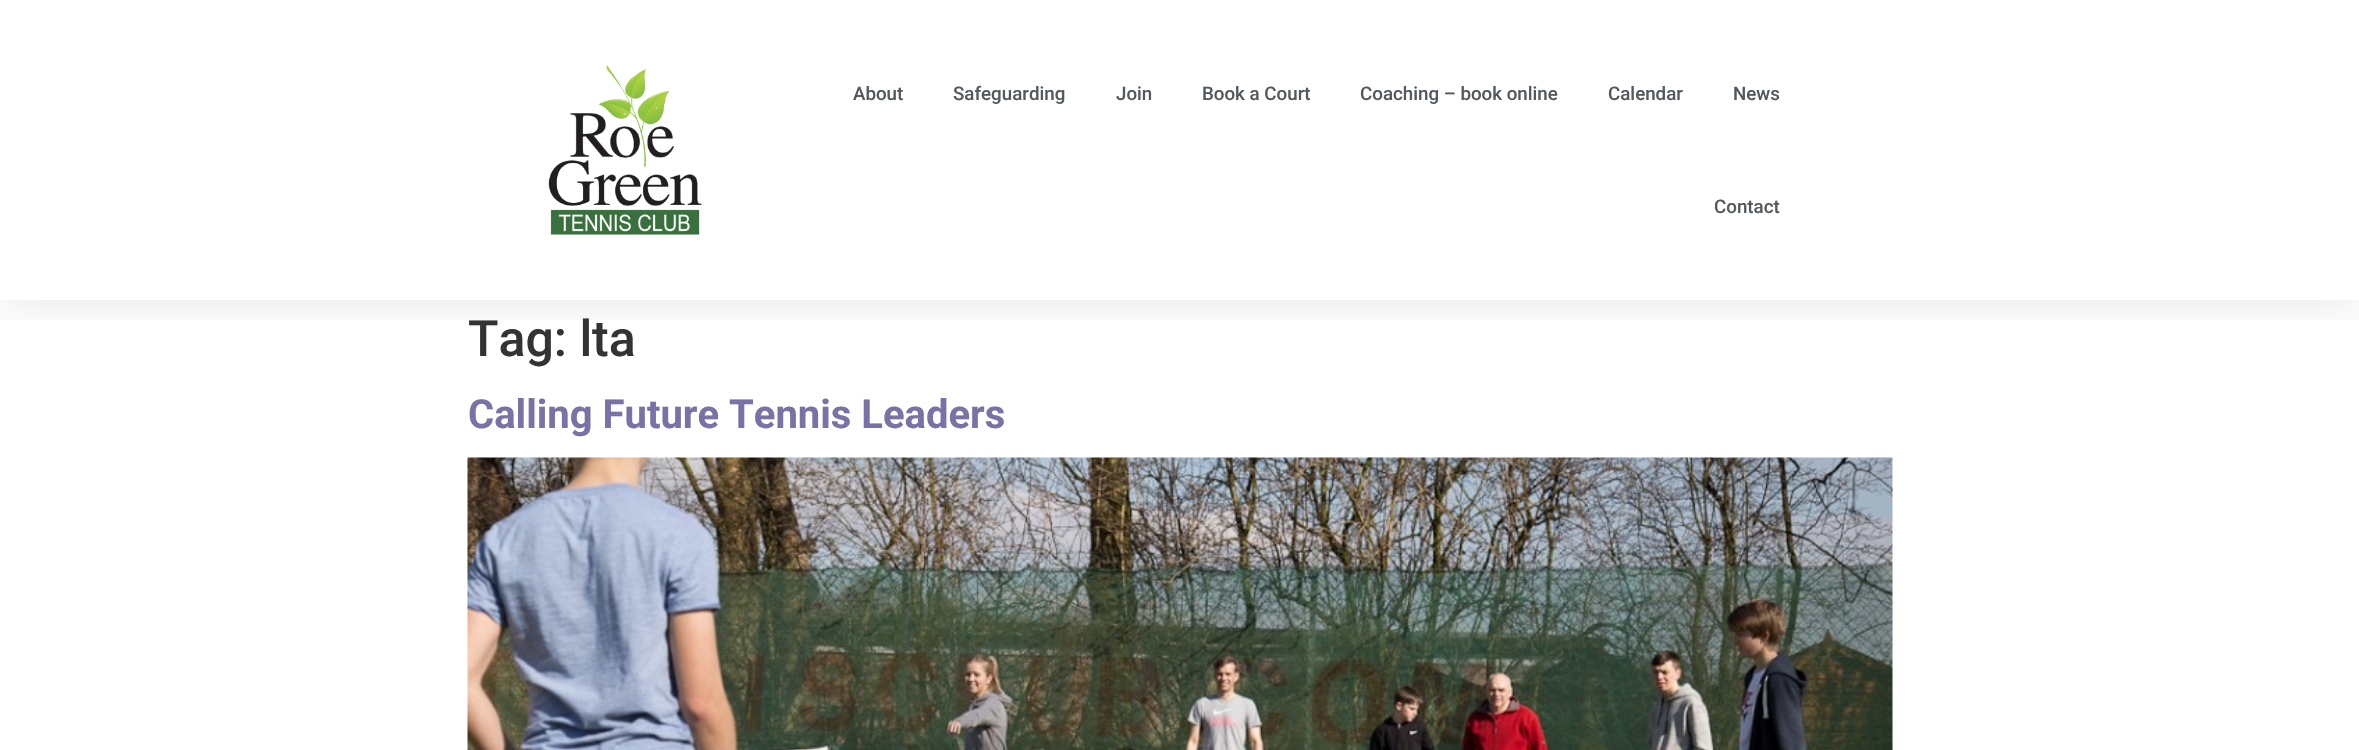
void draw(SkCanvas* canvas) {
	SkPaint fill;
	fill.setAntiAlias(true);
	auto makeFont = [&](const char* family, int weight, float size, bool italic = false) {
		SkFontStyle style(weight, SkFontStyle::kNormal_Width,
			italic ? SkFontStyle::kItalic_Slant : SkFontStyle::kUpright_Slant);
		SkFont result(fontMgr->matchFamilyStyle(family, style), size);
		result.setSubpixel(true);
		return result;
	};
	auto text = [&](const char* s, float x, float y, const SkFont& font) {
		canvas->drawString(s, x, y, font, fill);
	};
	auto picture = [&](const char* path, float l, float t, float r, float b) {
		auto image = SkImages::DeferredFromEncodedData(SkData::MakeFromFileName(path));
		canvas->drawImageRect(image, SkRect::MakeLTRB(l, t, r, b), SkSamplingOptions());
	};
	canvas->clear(0xFFFFFFFF);
	canvas->save();
	canvas->clipRect(SkRect::MakeLTRB(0, 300, 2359, 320));
	fill.setColor(0x1A000000);
	fill.setMaskFilter(SkMaskFilter::MakeBlur(kNormal_SkBlurStyle, 24));
	canvas->drawRect(SkRect::MakeLTRB(0, 0, 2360, 300), fill);
	fill.setMaskFilter(nullptr);
	canvas->restore();
	picture("image0.png", 548, 65, 702, 235);
	picture("image1.png", 467, 457, 1893, 750);
	auto font1 = makeFont("Roboto", 500, 18.75f);
	fill.setColor(0xFF54595F);
	text("About", 853, 100, font1);
	text("Safeguarding", 953, 100, font1);
	text("Join", 1116, 100, font1);
	text("Book a Court", 1202, 100, font1);
	text("Coaching – book online", 1360, 100, font1);
	text("Calendar", 1608, 100, font1);
	text("News", 1733, 100, font1);
	text("Contact", 1714, 213, font1);
	auto font2 = makeFont("Roboto", 500, 50);
	fill.setColor(0xFF333333);
	text("Tag: lta", 468, 356, font2);
	auto font3 = makeFont("Roboto", 700, 40);
	fill.setColor(0xFF7A71A7);
	text("Calling Future Tennis Leaders", 468, 428, font3);
}
